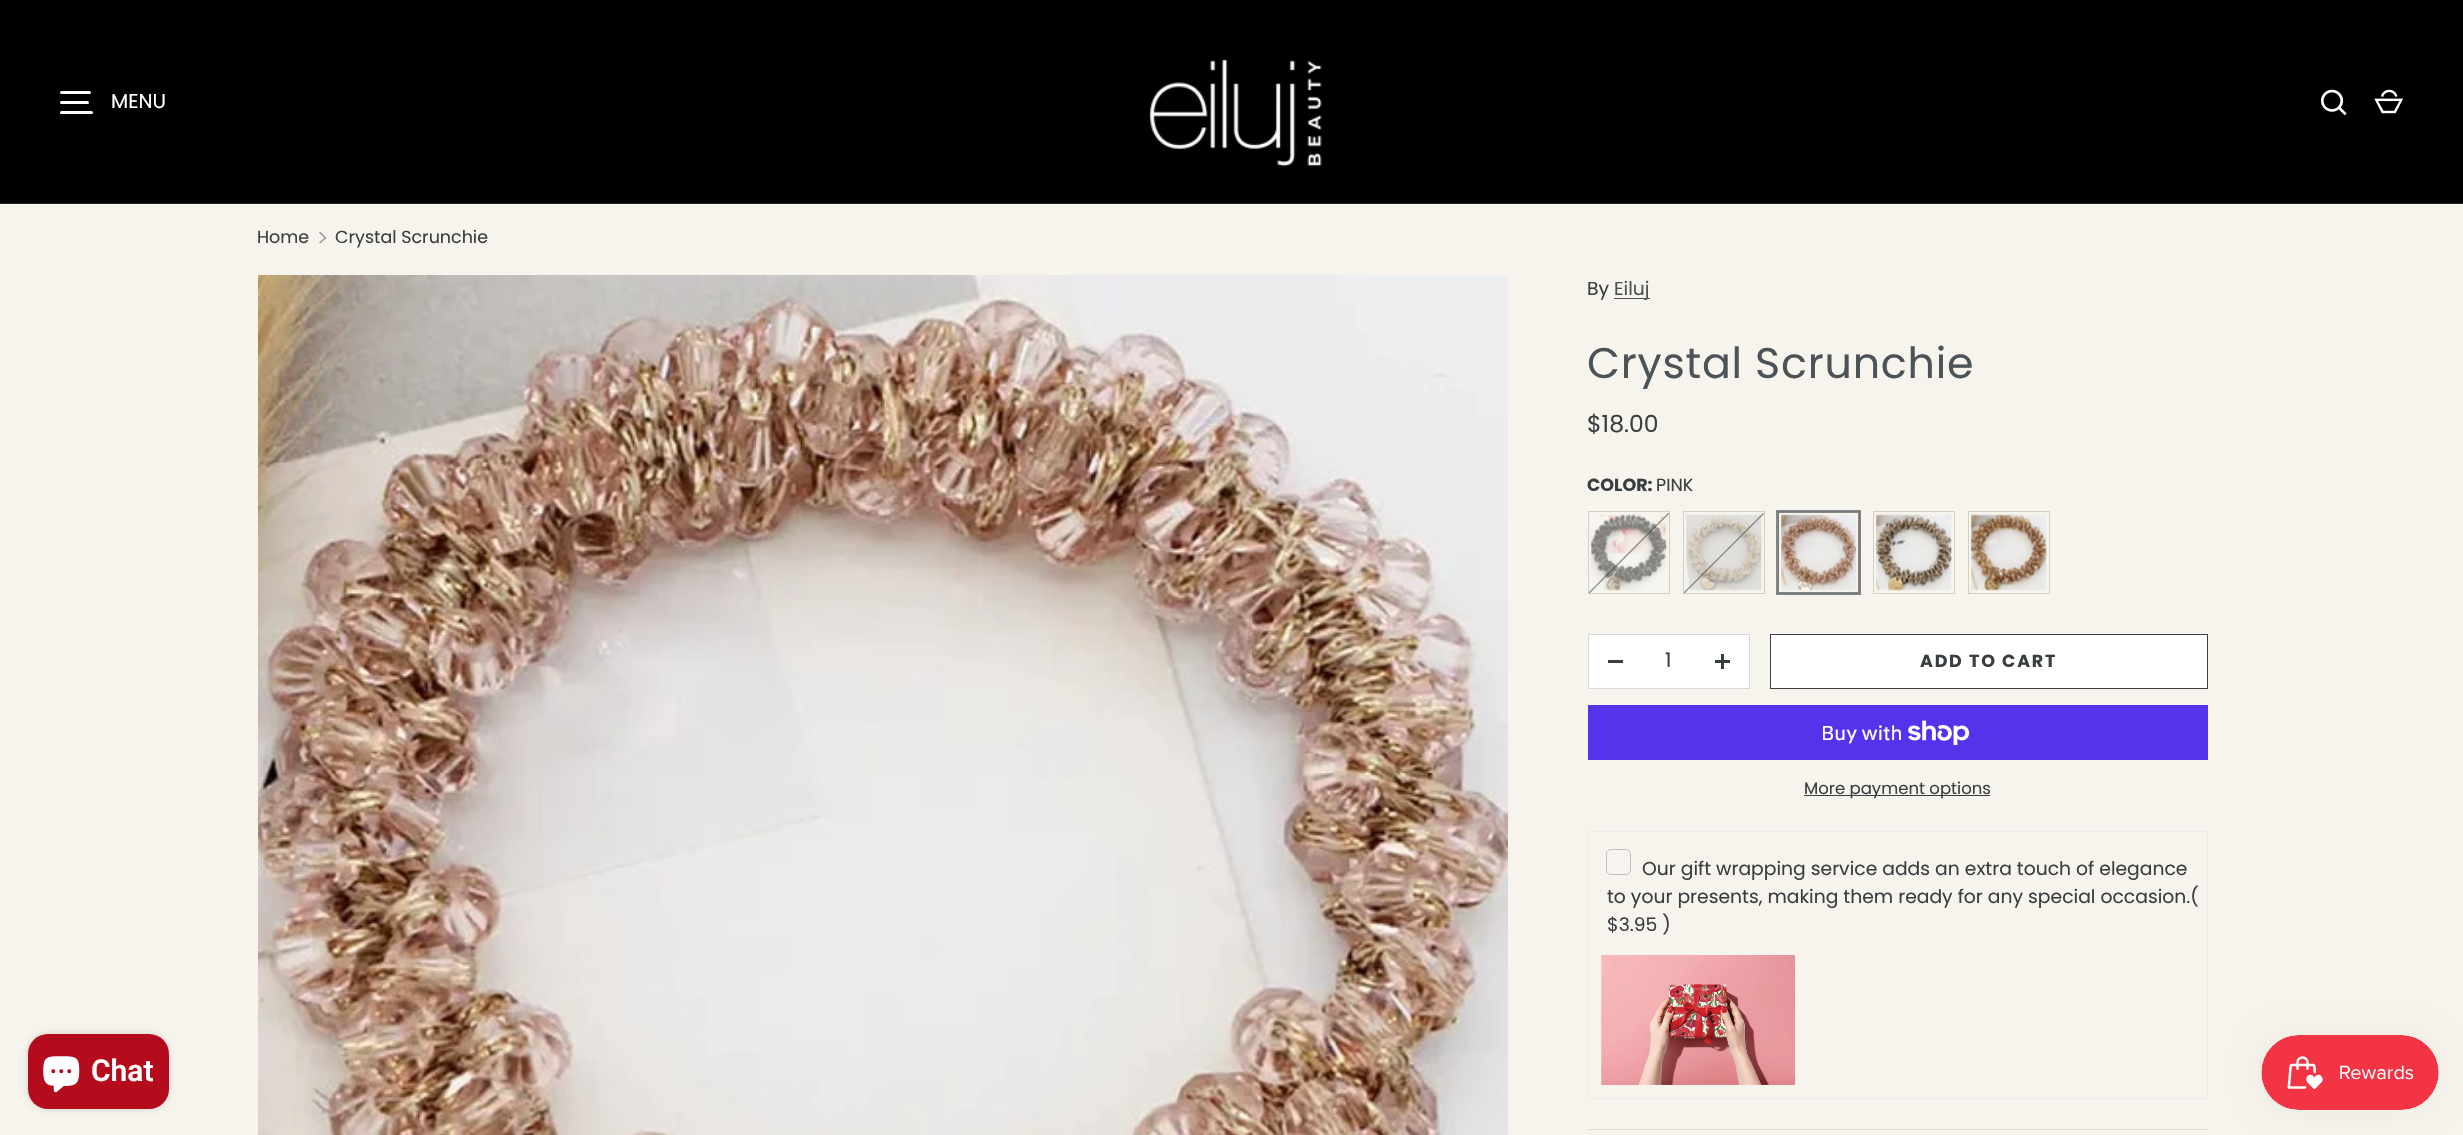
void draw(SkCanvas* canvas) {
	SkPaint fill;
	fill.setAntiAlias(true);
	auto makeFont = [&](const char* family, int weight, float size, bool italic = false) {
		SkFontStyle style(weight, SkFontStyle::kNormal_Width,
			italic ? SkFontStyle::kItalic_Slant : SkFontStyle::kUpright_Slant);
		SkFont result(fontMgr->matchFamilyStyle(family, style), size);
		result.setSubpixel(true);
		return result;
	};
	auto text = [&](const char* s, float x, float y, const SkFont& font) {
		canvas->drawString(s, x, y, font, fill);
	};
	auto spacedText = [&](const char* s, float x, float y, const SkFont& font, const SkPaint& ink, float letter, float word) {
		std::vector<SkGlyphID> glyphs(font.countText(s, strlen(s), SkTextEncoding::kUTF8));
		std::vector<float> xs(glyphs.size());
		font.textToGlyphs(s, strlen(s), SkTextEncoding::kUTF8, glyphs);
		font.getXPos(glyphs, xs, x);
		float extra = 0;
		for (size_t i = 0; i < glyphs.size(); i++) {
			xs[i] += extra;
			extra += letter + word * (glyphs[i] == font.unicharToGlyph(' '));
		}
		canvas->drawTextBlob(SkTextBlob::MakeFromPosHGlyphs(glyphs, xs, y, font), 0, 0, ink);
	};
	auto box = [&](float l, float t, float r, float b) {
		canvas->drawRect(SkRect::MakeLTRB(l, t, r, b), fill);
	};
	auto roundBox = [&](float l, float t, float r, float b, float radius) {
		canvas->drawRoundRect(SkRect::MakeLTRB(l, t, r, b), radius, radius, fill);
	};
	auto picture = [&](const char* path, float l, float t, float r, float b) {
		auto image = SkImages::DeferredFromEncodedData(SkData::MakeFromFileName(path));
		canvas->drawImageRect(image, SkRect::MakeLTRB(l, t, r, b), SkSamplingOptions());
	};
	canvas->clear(0xFFF6F4ED);
	fill.setColor(0xFF000000);
	box(0, 0, 2463, 203);
	fill.setColor(0xFF262626);
	box(0, 203, 2463, 204);
	fill.setColor(0xFFFFFFFF);
	roundBox(60, 91, 91, 94, 1.5f);
	roundBox(60, 101, 89, 104, 1.5f);
	roundBox(60, 111, 93, 114, 1.5f);
	picture("image0.png", 1149, 59, 1322, 167);
	picture("image1.png", 2321, 89, 2347, 116);
	picture("image2.png", 2374, 89, 2403, 114);
	fill.setStyle(SkPaint::kStroke_Style);
	fill.setStrokeWidth(1.5f);
	fill.setColor(0xFF989997);
	canvas->drawPath(SkPathBuilder().moveTo(319.5f, 232).lineTo(325.5f, 238).lineTo(319.5f, 243).detach(), fill);
	picture("image3.png", 258, 275, 1508, 1135);
	fill.setStyle(SkPaint::kFill_Style);
	fill.setColor(0xFF4C5357);
	box(1614, 298, 1650, 299);
	fill.setStyle(SkPaint::kStroke_Style);
	fill.setStrokeWidth(1);
	fill.setColor(0xFFD0D0CB);
	canvas->drawRect(SkRect::MakeLTRB(1588.5f, 511.5f, 1669.5f, 593.5f), fill);
	picture("image4.png", 1591, 514, 1667, 591);
	fill.setStyle(SkPaint::kFill_Style);
	{
		const SkColor colors[] = {0x00393E41, 0x99393E41, 0x00393E41};
		const float stops[] = {0.49f, 0.5f, 0.51f};
		const SkPoint ends[] = {{1589, 513}, {1669, 593}};
		fill.setShader(SkGradientShader::MakeLinear(ends, colors, stops, 3, SkTileMode::kClamp));
		fill.setAlpha(255);
	}
	box(1589, 513, 1669, 593);
	fill.setStyle(SkPaint::kStroke_Style);
	fill.setShader(nullptr);
	fill.setColor(0xFFD0D0CB);
	canvas->drawRect(SkRect::MakeLTRB(1683.5f, 511.5f, 1764.5f, 593.5f), fill);
	picture("image5.png", 1686, 514, 1762, 591);
	fill.setStyle(SkPaint::kFill_Style);
	{
		const SkColor colors[] = {0x00393E41, 0x99393E41, 0x00393E41};
		const float stops[] = {0.49f, 0.5f, 0.51f};
		const SkPoint ends[] = {{1684, 513}, {1764, 593}};
		fill.setShader(SkGradientShader::MakeLinear(ends, colors, stops, 3, SkTileMode::kClamp));
		fill.setAlpha(255);
	}
	box(1684, 513, 1764, 593);
	fill.setStyle(SkPaint::kStroke_Style);
	fill.setShader(nullptr);
	fill.setColor(0xFFD0D0CB);
	canvas->drawRect(SkRect::MakeLTRB(1778.5f, 511.5f, 1859.5f, 593.5f), fill);
	picture("image6.png", 1781, 514, 1857, 591);
	fill.setStrokeWidth(3);
	fill.setColor(0x99393E41);
	canvas->drawRect(SkRect::MakeLTRB(1777.5f, 511.5f, 1859.5f, 593.5f), fill);
	fill.setStrokeWidth(1);
	fill.setColor(0xFFD0D0CB);
	canvas->drawRect(SkRect::MakeLTRB(1873.5f, 511.5f, 1954.5f, 593.5f), fill);
	picture("image7.png", 1876, 514, 1952, 591);
	canvas->drawRect(SkRect::MakeLTRB(1968.5f, 511.5f, 2049.5f, 593.5f), fill);
	picture("image8.png", 1971, 514, 2047, 591);
	fill.setStyle(SkPaint::kFill_Style);
	fill.setColor(0xFFFFFFFF);
	canvas->drawRect(SkRect::MakeLTRB(1588.5f, 634.5f, 1749.5f, 688.5f), fill);
	fill.setStyle(SkPaint::kStroke_Style);
	fill.setColor(0xFFD7D8D9);
	canvas->drawRect(SkRect::MakeLTRB(1588.5f, 634.5f, 1749.5f, 688.5f), fill);
	fill.setStyle(SkPaint::kFill_Style);
	fill.setColor(0xFF393E41);
	box(1608, 660, 1623, 663);
	box(1715, 660, 1730, 663);
	box(1721, 654, 1724, 669);
	fill.setColor(0xFFFFFFFF);
	canvas->drawRect(SkRect::MakeLTRB(1770.5f, 634.5f, 2207.5f, 688.5f), fill);
	fill.setStyle(SkPaint::kStroke_Style);
	fill.setColor(0xFF393E41);
	canvas->drawRect(SkRect::MakeLTRB(1770.5f, 634.5f, 2207.5f, 688.5f), fill);
	fill.setStyle(SkPaint::kFill_Style);
	fill.setColor(0xFF5433EB);
	box(1588, 705, 2208, 760);
	picture("image9.png", 1908, 720, 1970, 745);
	fill.setColor(0xFF393E41);
	box(1804, 795, 1990, 796);
	fill.setStyle(SkPaint::kStroke_Style);
	fill.setColor(0xFFEBEBEB);
	canvas->drawRect(SkRect::MakeLTRB(1588.5f, 831.5f, 2207.5f, 1098.5f), fill);
	fill.setColor(0xFFBDC1C6);
	canvas->drawRoundRect(SkRect::MakeLTRB(1606.5f, 849.5f, 1630.5f, 874.5f), 4.5f, 4.5f, fill);
	picture("image10.png", 1601, 955, 1796, 1085);
	fill.setStyle(SkPaint::kFill_Style);
	fill.setColor(0xFFDAD9D3);
	box(1588, 1129, 2208, 1130);
	fill.setColor(0x26000000);
	fill.setMaskFilter(SkMaskFilter::MakeBlur(kNormal_SkBlurStyle, 3));
	canvas->drawRoundRect(SkRect::MakeLTRB(28, 1034, 169, 1109), 20, 20, fill);
	fill.setMaskFilter(nullptr);
	fill.setColor(0xFFB40C1C);
	roundBox(28, 1034, 169, 1109, 20);
	picture("image11.png", 43, 1056, 80, 1093);
	fill.setColor(0x0D000000);
	fill.setMaskFilter(SkMaskFilter::MakeBlur(kNormal_SkBlurStyle, 15.5f));
	canvas->drawRoundRect(SkRect::MakeLTRB(2261, 1035, 2439, 1110), 37.5f, 37.5f, fill);
	fill.setMaskFilter(nullptr);
	picture("image12.png", 2261, 1035, 2439, 1110);
	auto font1 = makeFont("Poppins", 400, 20);
	fill.setColor(0xFFFFFFFF);
	text("MENU", 111, 108, font1);
	auto font2 = makeFont("Poppins", 400, 17.5f);
	fill.setColor(0xFF393E41);
	text("Home", 257, 243, font2);
	text("Crystal Scrunchie", 335, 243, font2);
	auto font3 = makeFont("Poppins", 400, 18.75f);
	text("By", 1587, 295, font3);
	fill.setColor(0xFF4C5357);
	text("Eiluj", 1614, 295, font3);
	auto font4 = makeFont("Poppins", 400, 42.75f);
	spacedText("Crystal Scrunchie", 1587, 378, font4, fill, 0.8f, 0);
	auto font5 = makeFont("Poppins", 400, 23.5f);
	fill.setColor(0xFF393E41);
	text("$18.00", 1587, 432, font5);
	auto font6 = makeFont("Poppins", 700, 17.5f);
	text("COLOR:", 1587, 491, font6);
	text("PINK", 1656, 491, font2);
	text("1", 1665, 667, font1);
	spacedText("ADD TO CART", 1920, 667, font6, fill, 1.75f, 0);
	auto font7 = makeFont("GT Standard", 400, 20);
	fill.setColor(0xFFFFFFFF);
	text("Buy with", 1821, 740, font7);
	auto font8 = makeFont("Poppins", 400, 16.5f);
	fill.setColor(0xFF393E41);
	text("More payment options", 1804, 794, font8);
	text("Our gift wrapping service adds an extra touch of elegance", 1642, 875, font3);
	text("to your presents, making them ready for any special occasion.(", 1607, 903, font3);
	text("$3.95 )", 1607, 931, font3);
	auto font9 = makeFont("Roboto", 600, 30);
	fill.setColor(0xFFFFFFFF);
	text("Chat", 91, 1081, font9);
}
